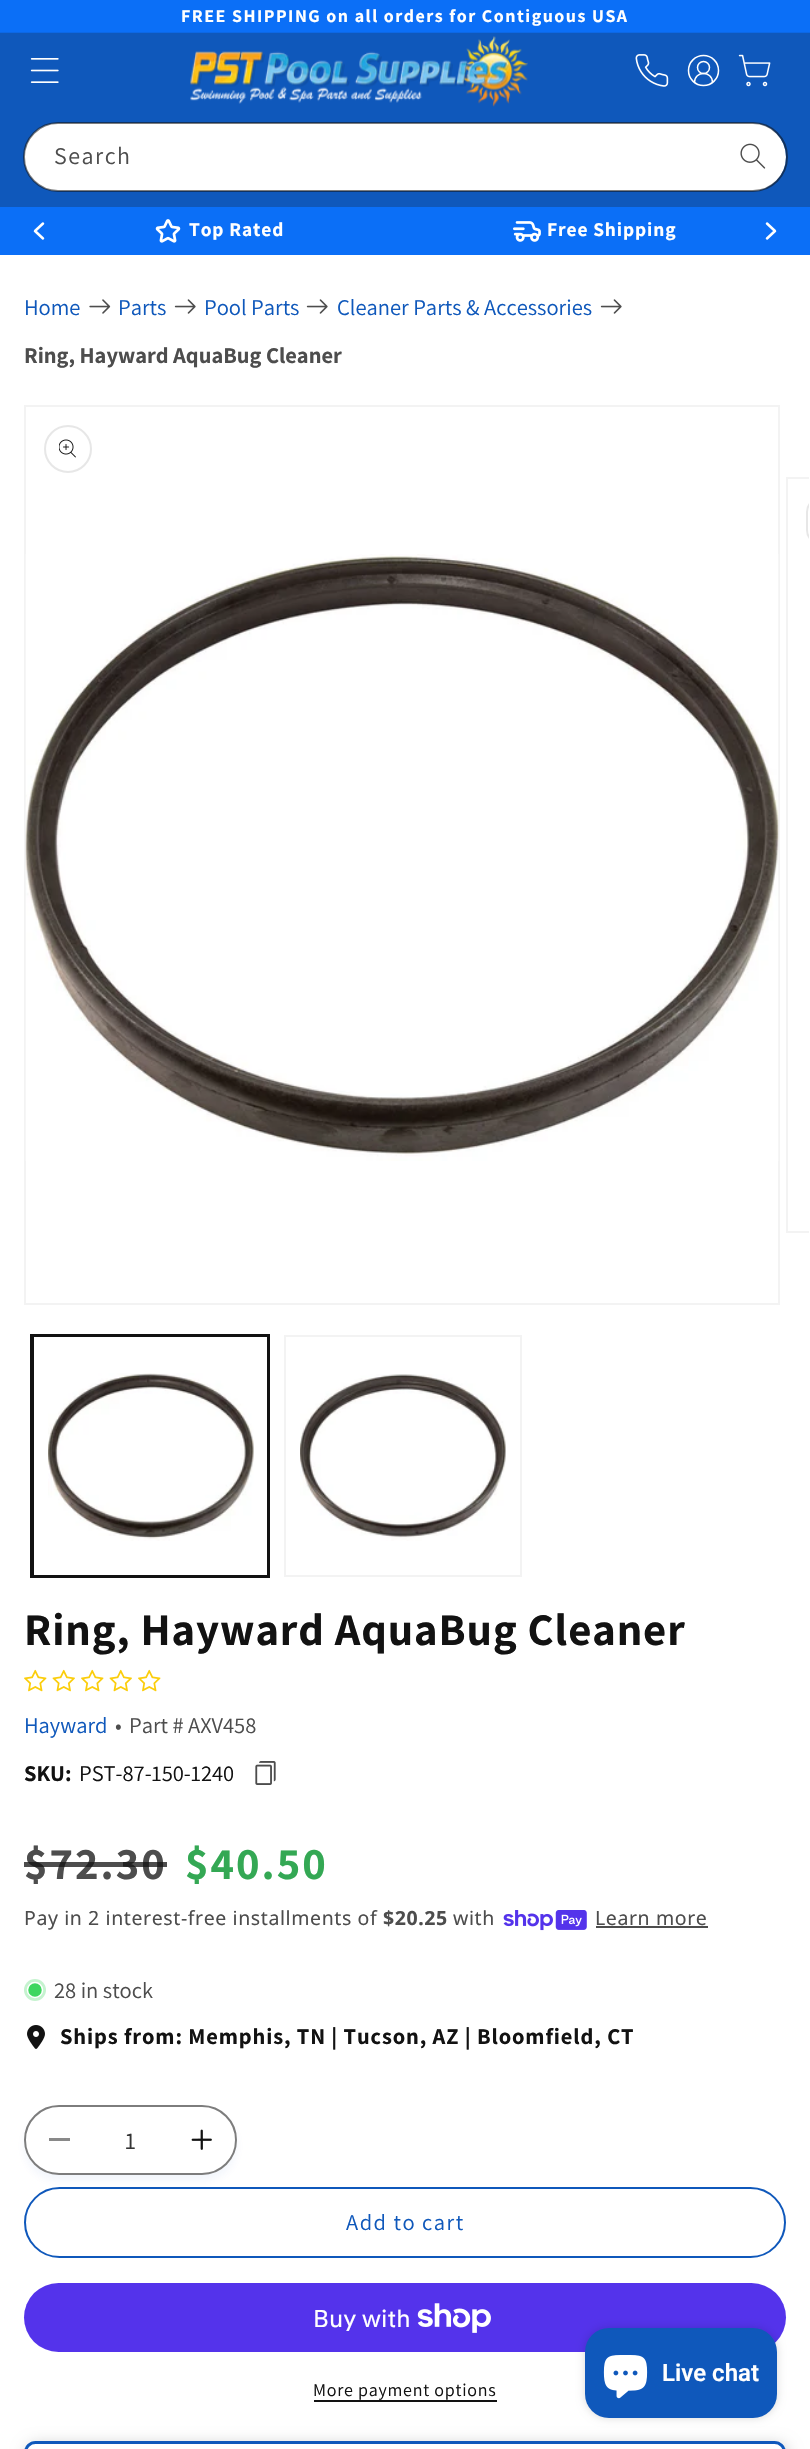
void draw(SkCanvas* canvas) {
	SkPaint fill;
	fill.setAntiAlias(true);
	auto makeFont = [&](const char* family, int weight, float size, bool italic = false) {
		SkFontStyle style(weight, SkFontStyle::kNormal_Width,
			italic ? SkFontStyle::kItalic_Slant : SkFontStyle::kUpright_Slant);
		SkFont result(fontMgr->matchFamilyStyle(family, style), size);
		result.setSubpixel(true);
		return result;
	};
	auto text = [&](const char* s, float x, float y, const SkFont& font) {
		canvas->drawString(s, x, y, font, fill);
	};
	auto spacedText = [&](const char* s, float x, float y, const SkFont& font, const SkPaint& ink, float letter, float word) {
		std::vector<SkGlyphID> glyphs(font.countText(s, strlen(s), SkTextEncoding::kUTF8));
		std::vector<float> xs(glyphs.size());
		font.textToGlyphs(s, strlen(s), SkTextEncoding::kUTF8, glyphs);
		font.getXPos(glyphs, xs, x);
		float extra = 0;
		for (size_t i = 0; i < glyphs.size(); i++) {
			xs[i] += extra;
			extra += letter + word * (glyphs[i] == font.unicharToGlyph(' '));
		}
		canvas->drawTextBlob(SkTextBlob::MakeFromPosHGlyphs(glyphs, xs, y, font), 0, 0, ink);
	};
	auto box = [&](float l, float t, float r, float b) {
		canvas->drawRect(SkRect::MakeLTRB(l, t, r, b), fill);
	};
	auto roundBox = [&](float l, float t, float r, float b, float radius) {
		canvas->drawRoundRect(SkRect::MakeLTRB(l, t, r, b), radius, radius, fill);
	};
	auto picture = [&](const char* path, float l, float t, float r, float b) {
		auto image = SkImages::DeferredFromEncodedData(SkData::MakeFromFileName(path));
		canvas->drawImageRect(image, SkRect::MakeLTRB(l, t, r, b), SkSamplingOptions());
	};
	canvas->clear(0xFFFFFFFF);
	fill.setColor(0xFF0B6FF7);
	box(0, 0, 810, 32);
	fill.setColor(0xFF0C68E5);
	box(0, 32, 810, 33);
	fill.setColor(0xFF0F58BB);
	box(0, 33, 810, 207);
	picture("image0.png", 30, 58, 59, 83);
	picture("image1.png", 190, 36, 528, 107);
	picture("image2.png", 635, 54, 669, 87);
	fill.setStyle(SkPaint::kStroke_Style);
	fill.setStrokeWidth(1.5f);
	fill.setStrokeCap(SkPaint::kRound_Cap);
	fill.setStrokeJoin(SkPaint::kRound_Join);
	fill.setColor(0xFFFFFFFF);
	canvas->drawPath(SkPathBuilder().moveTo(712.5f, 82.5f).cubicTo(712.5f, 70.5f, 694.5f, 70.5f, 694.5f, 82.5f).detach(), fill);
	fill.setStrokeCap(SkPaint::kButt_Cap);
	fill.setStrokeJoin(SkPaint::kMiter_Join);
	canvas->drawCircle(703.5f, 67.5f, 6, fill);
	canvas->drawCircle(703.5f, 70.5f, 15, fill);
	picture("image3.png", 738, 54, 771, 87);
	fill.setStyle(SkPaint::kFill_Style);
	roundBox(24, 123, 786, 191, 34);
	fill.setStyle(SkPaint::kStroke_Style);
	fill.setStrokeWidth(2);
	fill.setColor(0x8C121212);
	canvas->drawRoundRect(SkRect::MakeLTRB(24, 123, 787, 191), 34, 34, fill);
	picture("image4.png", 740, 143, 766, 169);
	fill.setStyle(SkPaint::kFill_Style);
	fill.setColor(0xFF0B6FF7);
	box(0, 207, 810, 255);
	fill.setStyle(SkPaint::kStroke_Style);
	fill.setStrokeWidth(2.5f);
	fill.setStrokeCap(SkPaint::kRound_Cap);
	fill.setStrokeJoin(SkPaint::kRound_Join);
	fill.setColor(0xFFFFFFFF);
	canvas->drawPath(SkPathBuilder().moveTo(43, 238.5f).lineTo(35, 231).lineTo(43, 223.5f).detach(), fill);
	picture("image5.png", 155, 219, 181, 243);
	picture("image6.png", 513, 221, 541, 242);
	canvas->drawPath(SkPathBuilder().moveTo(767, 238.5f).lineTo(775, 231).lineTo(767, 223.5f).detach(), fill);
	picture("image7.png", 89, 299, 111, 314);
	picture("image8.png", 174, 299, 196, 314);
	picture("image8.png", 306, 299, 328, 314);
	picture("image8.png", 600, 299, 622, 314);
	fill.setStrokeWidth(2);
	fill.setStrokeCap(SkPaint::kButt_Cap);
	fill.setStrokeJoin(SkPaint::kMiter_Join);
	fill.setColor(0xFFF3F3F3);
	canvas->drawRect(SkRect::MakeLTRB(25, 406, 779, 1304), fill);
	fill.setColor(0xFFE7E7E7);
	canvas->drawCircle(68, 449, 23, fill);
	picture("image9.png", 59, 439, 76, 458);
	picture("image10.png", 25, 554, 779, 1161);
	canvas->save();
	canvas->clipRect(SkRect::MakeLTRB(2, 398, 809, 1313));
	fill.setColor(0xFFF3F3F3);
	canvas->drawRect(SkRect::MakeLTRB(787, 478, 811, 1232), fill);
	fill.setColor(0xFFE7E7E7);
	canvas->drawRoundRect(SkRect::MakeLTRB(807, 498, 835, 544), 23, 23, fill);
	canvas->restore();
	fill.setColor(0xFF121212);
	canvas->drawRect(SkRect::MakeLTRB(31, 1335, 269, 1577), fill);
	canvas->drawRect(SkRect::MakeLTRB(33, 1336, 268, 1576), fill);
	picture("image11.png", 48, 1373, 254, 1541);
	fill.setColor(0xFFF3F3F3);
	canvas->drawRect(SkRect::MakeLTRB(285, 1336, 521, 1576), fill);
	picture("image12.png", 300, 1374, 506, 1541);
	picture("image13.png", 24, 1669, 47, 1692);
	picture("image14.png", 52, 1669, 75, 1692);
	picture("image13.png", 81, 1669, 104, 1692);
	picture("image14.png", 109, 1669, 132, 1692);
	picture("image13.png", 138, 1669, 161, 1692);
	picture("image15.png", 255, 1761, 276, 1785);
	picture("image16.png", 503, 1910, 587, 1931);
	fill.setStyle(SkPaint::kFill_Style);
	fill.setColor(0xFF4D4D4D);
	box(596, 1926, 708, 1928);
	fill.setColor(0xFFC5F3CF);
	canvas->drawCircle(35, 1990, 11, fill);
	fill.setColor(0xFF3ED660);
	canvas->drawCircle(35, 1990, 7.5f, fill);
	fill.setStyle(SkPaint::kStroke_Style);
	fill.setStrokeWidth(1.5f);
	fill.setColor(0xFFFFFFFF);
	canvas->drawCircle(35, 1990, 7.5f, fill);
	picture("image17.png", 27, 2025, 45, 2049);
	fill.setStyle(SkPaint::kFill_Style);
	fill.setColor(0x0D0F58BB);
	fill.setMaskFilter(SkMaskFilter::MakeBlur(kNormal_SkBlurStyle, 4));
	canvas->drawRoundRect(SkRect::MakeLTRB(24, 2111, 237, 2181), 35, 35, fill);
	fill.setMaskFilter(nullptr);
	fill.setColor(0xFFFFFFFF);
	roundBox(24, 2105, 237, 2175, 35);
	fill.setColor(0xFF898989);
	box(49, 2138, 70, 2141);
	picture("image18.png", 191, 2129, 212, 2150);
	fill.setStyle(SkPaint::kStroke_Style);
	fill.setStrokeWidth(2);
	fill.setColor(0x8C121212);
	canvas->drawRoundRect(SkRect::MakeLTRB(25, 2106, 236, 2174), 34, 34, fill);
	fill.setColor(0xFF0F58BB);
	canvas->drawRoundRect(SkRect::MakeLTRB(25, 2188, 785, 2257), 34.5f, 34.5f, fill);
	fill.setStyle(SkPaint::kFill_Style);
	fill.setColor(0xFF5433EB);
	roundBox(24, 2283, 786, 2352, 34.5f);
	picture("image19.png", 417, 2303, 491, 2333);
	fill.setColor(0xFF121212);
	box(314, 2400, 497, 2402);
	canvas->save();
	canvas->clipPath(SkPathBuilder(SkPathFillType::kEvenOdd).moveTo(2, 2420).lineTo(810, 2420).lineTo(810, 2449).lineTo(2, 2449).close().moveTo(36, 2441).lineTo(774, 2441).cubicTo(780.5f, 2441, 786, 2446.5f, 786, 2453).lineTo(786, 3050).cubicTo(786, 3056.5f, 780.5f, 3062, 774, 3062).lineTo(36, 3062).cubicTo(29.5f, 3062, 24, 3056.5f, 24, 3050).lineTo(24, 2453).cubicTo(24, 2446.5f, 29.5f, 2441, 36, 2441).close().detach(), true);
	fill.setColor(0x33000000);
	fill.setMaskFilter(SkMaskFilter::MakeBlur(kNormal_SkBlurStyle, 7.5f));
	canvas->drawRoundRect(SkRect::MakeLTRB(26, 2444, 788, 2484), 12, 12, fill);
	fill.setMaskFilter(nullptr);
	canvas->restore();
	fill.setStyle(SkPaint::kStroke_Style);
	fill.setStrokeWidth(3);
	fill.setColor(0xFF0F58BB);
	canvas->drawRoundRect(SkRect::MakeLTRB(25.5f, 2442.5f, 784.5f, 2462.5f), 10.5f, 10.5f, fill);
	fill.setStyle(SkPaint::kFill_Style);
	fill.setColor(0x26000000);
	fill.setMaskFilter(SkMaskFilter::MakeBlur(kNormal_SkBlurStyle, 4));
	canvas->drawRoundRect(SkRect::MakeLTRB(585, 2328, 777, 2418), 24, 24, fill);
	fill.setMaskFilter(nullptr);
	fill.setColor(0xFF0F58BB);
	roundBox(585, 2328, 777, 2418, 24);
	picture("image20.png", 603, 2355, 648, 2399);
	auto font1 = makeFont("Assistant", 700, 18);
	fill.setColor(0xFFFFFFFF);
	spacedText("FREE SHIPPING on all orders for Contiguous USA", 181, 22, font1, fill, 1.5f, 0);
	auto font2 = makeFont("Assistant", 400, 24);
	fill.setColor(0xFF4D4D4D);
	spacedText("Search", 54, 164, font2, fill, 1.5f, 0);
	auto font3 = makeFont("Assistant", 700, 19.5f);
	fill.setColor(0xFFFFFFFF);
	spacedText("Top Rated", 189, 236, font3, fill, 0.9f, 0);
	spacedText("Free Shipping", 547, 236, font3, fill, 0.9f, 0);
	auto font4 = makeFont("Assistant", 400, 22.5f);
	fill.setColor(0xFF0F58BB);
	text("Home", 24, 315, font4);
	text("Parts", 118, 315, font4);
	text("Pool Parts", 204, 315, font4);
	text("Cleaner Parts & Accessories", 337, 315, font4);
	auto font5 = makeFont("Assistant", 700, 22.5f);
	fill.setColor(0xFF4D4D4D);
	text("Ring, Hayward AquaBug Cleaner", 24, 363, font5);
	auto font6 = makeFont("Assistant", 700, 45);
	fill.setColor(0xFF121212);
	spacedText("Ring, Hayward AquaBug Cleaner", 24, 1645, font6, fill, 0.9f, 0);
	fill.setColor(0xFF0F58BB);
	text("Hayward", 24, 1733, font4);
	fill.setColor(0xFF4D4D4D);
	text("•", 115, 1733, font4);
	text("Part # AXV458", 129, 1733, font4);
	fill.setColor(0xFF121212);
	text("SKU:", 24, 1781, font5);
	text("PST-87-150-1240", 79, 1781, font4);
	fill.setColor(0xFF4D4D4D);
	spacedText("$72.30", 24, 1879, font6, fill, 2, 0);
	fill.setColor(0xBF121212);
	box(24, 1862, 167, 1867);
	fill.setColor(0xFF34A854);
	spacedText("$40.50", 185, 1879, font6, fill, 2, 0);
	auto font7 = makeFont("Noto Sans", 400, 19.5f);
	fill.setColor(0xFF4D4D4D);
	spacedText("Pay in 2 interest-free installments of", 24, 1925, font7, fill, 0.6f, 0);
	auto font8 = makeFont("Noto Sans", 700, 19.5f);
	spacedText("$20.25", 383, 1925, font8, fill, 0.6f, 0);
	spacedText("with", 453, 1925, font7, fill, 0.6f, 0);
	spacedText("Learn more", 595, 1925, font7, fill, 0.6f, 0);
	text("28 in stock", 54, 1998, font4);
	fill.setColor(0xFF121212);
	spacedText("Ships from: Memphis, TN | Tucson, AZ | Bloomfield, CT", 60, 2044, font5, fill, 0.9f, 0);
	fill.setColor(0xFF363636);
	text("1", 125, 2149, font2);
	fill.setColor(0xFF0F58BB);
	spacedText("Add to cart", 346, 2230, font4, fill, 1.5f, 0);
	auto font9 = makeFont("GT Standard", 400, 24);
	fill.setColor(0xFFFFFFFF);
	text("Buy with", 313, 2327, font9);
	auto font10 = makeFont("Assistant", 400, 18);
	fill.setColor(0xFF121212);
	spacedText("More payment options", 313, 2396, font10, fill, 0.75f, 0);
	auto font11 = makeFont("Roboto", 600, 24);
	fill.setColor(0xFFFFFFFF);
	text("Live chat", 662, 2381, font11);
}
